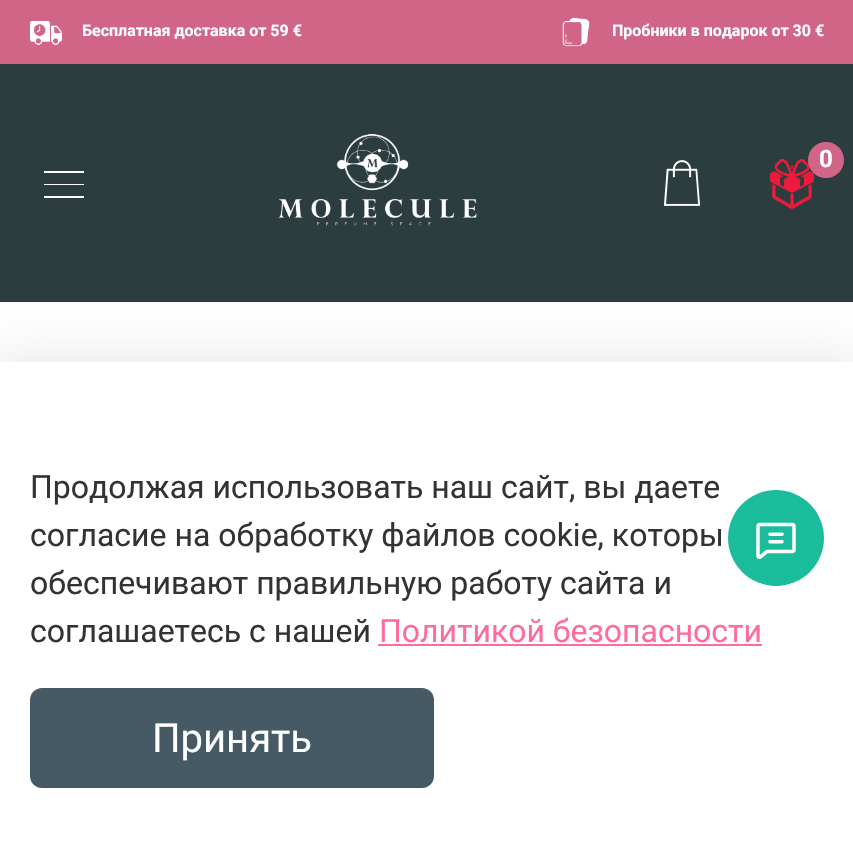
void draw(SkCanvas* canvas) {
	SkPaint fill;
	fill.setAntiAlias(true);
	auto makeFont = [&](const char* family, int weight, float size, bool italic = false) {
		SkFontStyle style(weight, SkFontStyle::kNormal_Width,
			italic ? SkFontStyle::kItalic_Slant : SkFontStyle::kUpright_Slant);
		SkFont result(fontMgr->matchFamilyStyle(family, style), size);
		result.setSubpixel(true);
		return result;
	};
	auto text = [&](const char* s, float x, float y, const SkFont& font) {
		canvas->drawString(s, x, y, font, fill);
	};
	auto box = [&](float l, float t, float r, float b) {
		canvas->drawRect(SkRect::MakeLTRB(l, t, r, b), fill);
	};
	auto roundBox = [&](float l, float t, float r, float b, float radius) {
		canvas->drawRoundRect(SkRect::MakeLTRB(l, t, r, b), radius, radius, fill);
	};
	auto picture = [&](const char* path, float l, float t, float r, float b) {
		auto image = SkImages::DeferredFromEncodedData(SkData::MakeFromFileName(path));
		canvas->drawImageRect(image, SkRect::MakeLTRB(l, t, r, b), SkSamplingOptions());
	};
	canvas->clear(0xFFFFFFFF);
	fill.setColor(0xFFD16587);
	box(0, 0, 853, 64);
	picture("image0.png", 30, 21, 62, 45);
	picture("image1.png", 562, 17, 590, 47);
	fill.setColor(0xFF2C3D3F);
	box(0, 64, 853, 302);
	picture("image2.png", 278, 134, 477, 226);
	picture("image3.png", 663, 160, 701, 206);
	picture("image4.png", 770, 159, 814, 209);
	fill.setColor(0xFFD16587);
	canvas->drawCircle(826, 160, 18, fill);
	fill.setColor(0xFFFFFFFF);
	canvas->drawPath(SkPathBuilder().moveTo(44, 171).lineTo(84, 171).lineTo(84, 173).lineTo(44, 173).close().moveTo(44, 196).lineTo(84, 196).lineTo(84, 198).lineTo(44, 198).close().moveTo(44, 184).lineTo(84, 184).lineTo(84, 185).lineTo(44, 185).close().detach(), fill);
	fill.setColor(0x17000000);
	fill.setMaskFilter(SkMaskFilter::MakeBlur(kNormal_SkBlurStyle, 23));
	canvas->drawRect(SkRect::MakeLTRB(-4, 356, 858, 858), fill);
	fill.setMaskFilter(nullptr);
	fill.setColor(0xFFFFFFFF);
	box(0, 362, 853, 856);
	fill.setColor(0xFFFF6B9A);
	box(378, 644, 762, 646);
	fill.setColor(0xFF455A64);
	roundBox(30, 688, 434, 788, 12);
	fill.setColor(0xFF1ABC9C);
	canvas->drawCircle(776, 538, 48, fill);
	picture("image5.png", 756, 522, 796, 559);
	auto font1 = makeFont("Roboto", 700, 16);
	fill.setColor(0xFFFFFFFF);
	text("Бесплатная доставка от 59 €", 82, 36, font1);
	text("Пробники в подарок от 30 €", 612, 36, font1);
	auto font2 = makeFont("Roboto", 700, 24);
	text("0", 819, 167, font2);
	auto font3 = makeFont("Roboto", 400, 32);
	fill.setColor(0xFF333333);
	text("Продолжая использовать наш сайт, вы даете", 30, 498, font3);
	text("согласие на обработку файлов cookie, которы", 30, 546, font3);
	text("обеспечивают правильную работу сайта и", 30, 594, font3);
	text("соглашаетесь с нашей", 30, 642, font3);
	fill.setColor(0xFFFF6B9A);
	text("Политикой безопасности", 379, 642, font3);
	auto font4 = makeFont("Roboto", 400, 40);
	fill.setColor(0xFFFFFFFF);
	text("Принять", 152, 752, font4);
}
